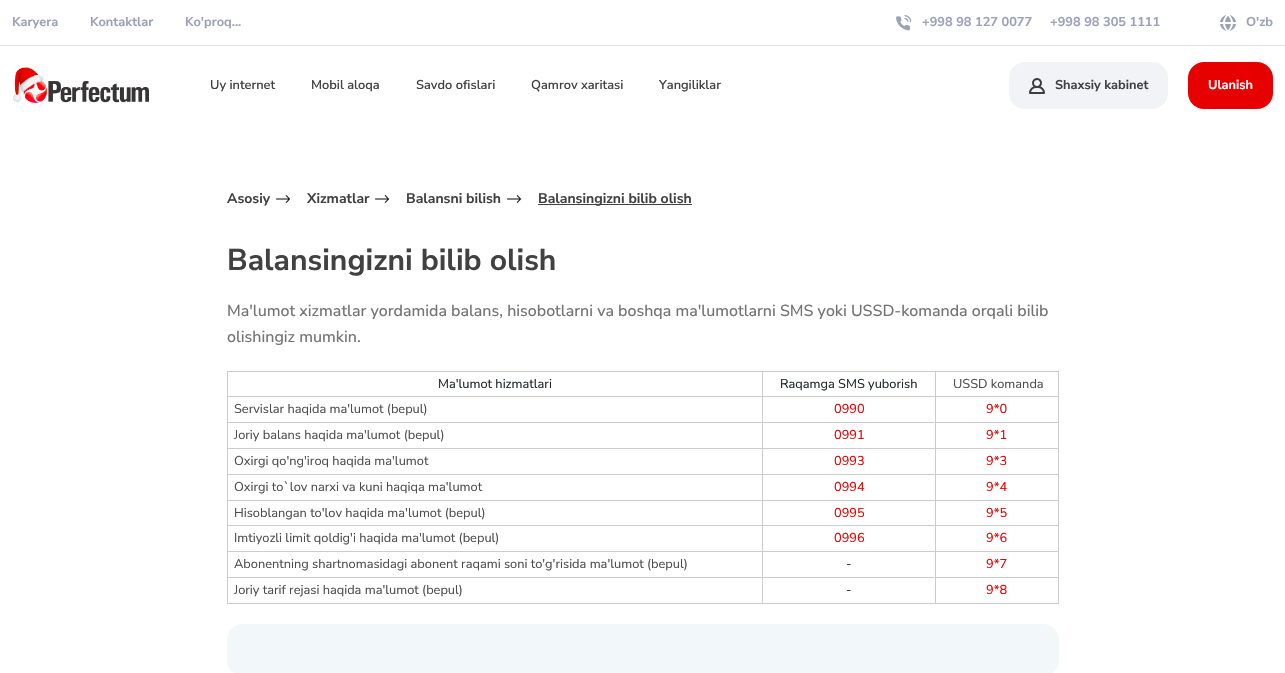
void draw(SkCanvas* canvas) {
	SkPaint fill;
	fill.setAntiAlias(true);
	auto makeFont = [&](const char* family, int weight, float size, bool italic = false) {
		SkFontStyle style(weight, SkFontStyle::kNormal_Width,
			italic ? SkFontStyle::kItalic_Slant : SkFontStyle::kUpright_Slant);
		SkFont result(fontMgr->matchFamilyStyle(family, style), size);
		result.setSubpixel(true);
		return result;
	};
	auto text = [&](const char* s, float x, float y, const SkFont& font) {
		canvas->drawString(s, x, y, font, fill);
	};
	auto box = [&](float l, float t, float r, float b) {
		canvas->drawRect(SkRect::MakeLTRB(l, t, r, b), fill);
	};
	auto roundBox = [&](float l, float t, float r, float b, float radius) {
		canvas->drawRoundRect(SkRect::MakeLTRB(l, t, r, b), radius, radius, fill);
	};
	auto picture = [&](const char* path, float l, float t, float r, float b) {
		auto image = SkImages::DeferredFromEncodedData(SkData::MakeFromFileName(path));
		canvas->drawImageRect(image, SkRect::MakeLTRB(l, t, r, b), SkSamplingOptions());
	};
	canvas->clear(0xFFFFFFFF);
	fill.setColor(0xFFDFDFDF);
	box(0, 45, 1285, 46);
	picture("image0.png", 896, 15, 912, 31);
	picture("image1.png", 1220, 15, 1236, 31);
	picture("image2.png", 13, 67, 149, 103);
	fill.setColor(0xFFF2F3F7);
	roundBox(1009, 62, 1168, 109, 16);
	picture("image3.png", 1029, 78, 1045, 94);
	fill.setColor(0xFFE60000);
	roundBox(1188, 62, 1273, 109, 16);
	picture("image4.png", 276, 195, 290, 203);
	picture("image5.png", 375, 195, 390, 203);
	picture("image5.png", 507, 195, 522, 203);
	fill.setColor(0xFF414141);
	box(538, 204, 692, 205);
	fill.setColor(0xFFCCCCCC);
	box(935, 371, 1059, 372);
	box(935, 396, 1059, 397);
	box(935, 422, 1059, 423);
	box(935, 448, 1059, 449);
	box(935, 474, 1059, 475);
	box(935, 500, 1059, 501);
	box(935, 525, 1059, 526);
	box(935, 551, 1059, 552);
	box(935, 577, 1059, 578);
	box(1058, 577, 1059, 604);
	box(935, 603, 1059, 604);
	box(935, 577, 936, 604);
	box(762, 577, 936, 578);
	box(935, 551, 936, 578);
	box(762, 551, 936, 552);
	box(935, 525, 936, 552);
	box(762, 525, 936, 526);
	box(935, 500, 936, 526);
	box(762, 500, 936, 501);
	box(935, 474, 936, 501);
	box(762, 474, 936, 475);
	box(935, 448, 936, 475);
	box(762, 448, 936, 449);
	box(935, 422, 936, 449);
	box(762, 422, 936, 423);
	box(935, 396, 936, 423);
	box(762, 396, 936, 397);
	box(935, 371, 936, 397);
	box(762, 371, 936, 372);
	box(762, 603, 936, 604);
	box(762, 577, 763, 604);
	box(227, 577, 763, 578);
	box(762, 551, 763, 578);
	box(227, 551, 763, 552);
	box(762, 525, 763, 552);
	box(227, 525, 763, 526);
	box(762, 500, 763, 526);
	box(227, 500, 763, 501);
	box(762, 474, 763, 501);
	box(227, 474, 763, 475);
	box(762, 448, 763, 475);
	box(227, 448, 763, 449);
	box(762, 422, 763, 449);
	box(227, 422, 763, 423);
	box(762, 396, 763, 423);
	box(227, 396, 763, 397);
	box(762, 371, 763, 397);
	box(227, 371, 763, 372);
	box(227, 603, 763, 604);
	box(227, 577, 228, 604);
	box(227, 551, 228, 578);
	box(227, 525, 228, 552);
	box(227, 500, 228, 526);
	box(227, 474, 228, 501);
	box(227, 448, 228, 475);
	box(227, 422, 228, 449);
	box(227, 396, 228, 423);
	box(227, 371, 228, 397);
	box(1058, 551, 1059, 578);
	box(1058, 525, 1059, 552);
	box(1058, 500, 1059, 526);
	box(1058, 474, 1059, 501);
	box(1058, 448, 1059, 475);
	box(1058, 422, 1059, 449);
	box(1058, 396, 1059, 423);
	box(1058, 371, 1059, 397);
	fill.setColor(0xFFF2F7F9);
	roundBox(227, 624, 1059, 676, 16);
	auto font1 = makeFont("Nunito Sans", 700, 12.8f);
	fill.setColor(0xFF9BA1B9);
	text("Karyera", 12, 26, font1);
	text("Kontaktlar", 90, 26, font1);
	text("Ko'proq...", 185, 26, font1);
	text("+998 98 127 0077", 922, 26, font1);
	text("+998 98 305 1111", 1050, 26, font1);
	text("O'zb", 1246, 26, font1);
	auto font2 = makeFont("Nunito Sans", 600, 12.8f);
	fill.setColor(0xFF414141);
	text("Uy internet", 210, 89, font2);
	text("Mobil aloqa", 311, 89, font2);
	text("Savdo ofislari", 416, 89, font2);
	text("Qamrov xaritasi", 531, 89, font2);
	text("Yangiliklar", 659, 89, font2);
	text("Shaxsiy kabinet", 1055, 89, font1);
	fill.setColor(0xFFFFFFFF);
	text("Ulanish", 1208, 89, font1);
	auto font3 = makeFont("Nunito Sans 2", 700, 14);
	fill.setColor(0xFF414141);
	text("Asosiy", 227, 203, font3);
	text("Xizmatlar", 307, 203, font3);
	text("Balansni bilish", 406, 203, font3);
	text("Balansingizni bilib olish", 538, 203, font3);
	auto font4 = makeFont("Nunito Sans", 700, 30);
	text("Balansingizni bilib olish", 227, 270, font4);
	auto font5 = makeFont("Nunito Sans", 500, 16);
	fill.setColor(0xFF747474);
	text("Ma'lumot xizmatlar yordamida balans, hisobotlarni va boshqa ma'lumotlarni SMS yoki USSD-komanda orqali bilib", 227, 316, font5);
	text("olishingiz mumkin.", 227, 342, font5);
	auto font6 = makeFont("Nunito Sans", 400, 12.8f);
	fill.setColor(0xFF212529);
	text("Ma'lumot hizmatlari", 438, 388, font6);
	text("Raqamga SMS yuborish", 780, 388, font6);
	fill.setColor(0xFF4D4D4D);
	text("USSD komanda", 953, 388, font6);
	text("Servislar haqida ma'lumot (bepul)", 234, 413, font6);
	fill.setColor(0xFFE60000);
	text("0990", 834, 413, font6);
	text("9*0", 986, 413, font6);
	fill.setColor(0xFF4D4D4D);
	text("Joriy balans haqida ma'lumot (bepul)", 234, 439, font6);
	fill.setColor(0xFFE60000);
	text("0991", 834, 439, font6);
	text("9*1", 986, 439, font6);
	fill.setColor(0xFF4D4D4D);
	text("Oxirgi qo'ng'iroq haqida ma'lumot", 234, 465, font6);
	fill.setColor(0xFFE60000);
	text("0993", 834, 465, font6);
	text("9*3", 986, 465, font6);
	fill.setColor(0xFF4D4D4D);
	text("Oxirgi to`lov narxi va kuni haqiqa ma'lumot", 234, 491, font6);
	fill.setColor(0xFFE60000);
	text("0994", 834, 491, font6);
	text("9*4", 986, 491, font6);
	fill.setColor(0xFF4D4D4D);
	text("Hisoblangan to'lov haqida ma'lumot (bepul)", 234, 517, font6);
	fill.setColor(0xFFE60000);
	text("0995", 834, 517, font6);
	text("9*5", 986, 517, font6);
	fill.setColor(0xFF4D4D4D);
	text("Imtiyozli limit qoldig'i haqida ma'lumot (bepul)", 234, 542, font6);
	fill.setColor(0xFFE60000);
	text("0996", 834, 542, font6);
	text("9*6", 986, 542, font6);
	fill.setColor(0xFF4D4D4D);
	text("Abonentning shartnomasidagi abonent raqami soni to'g'risida ma'lumot (bepul)", 234, 568, font6);
	fill.setColor(0xFF212529);
	text("-", 846, 568, font6);
	fill.setColor(0xFFE60000);
	text("9*7", 986, 568, font6);
	fill.setColor(0xFF4D4D4D);
	text("Joriy tarif rejasi haqida ma'lumot (bepul)", 234, 594, font6);
	fill.setColor(0xFF212529);
	text("-", 846, 594, font6);
	fill.setColor(0xFFE60000);
	text("9*8", 986, 594, font6);
}
